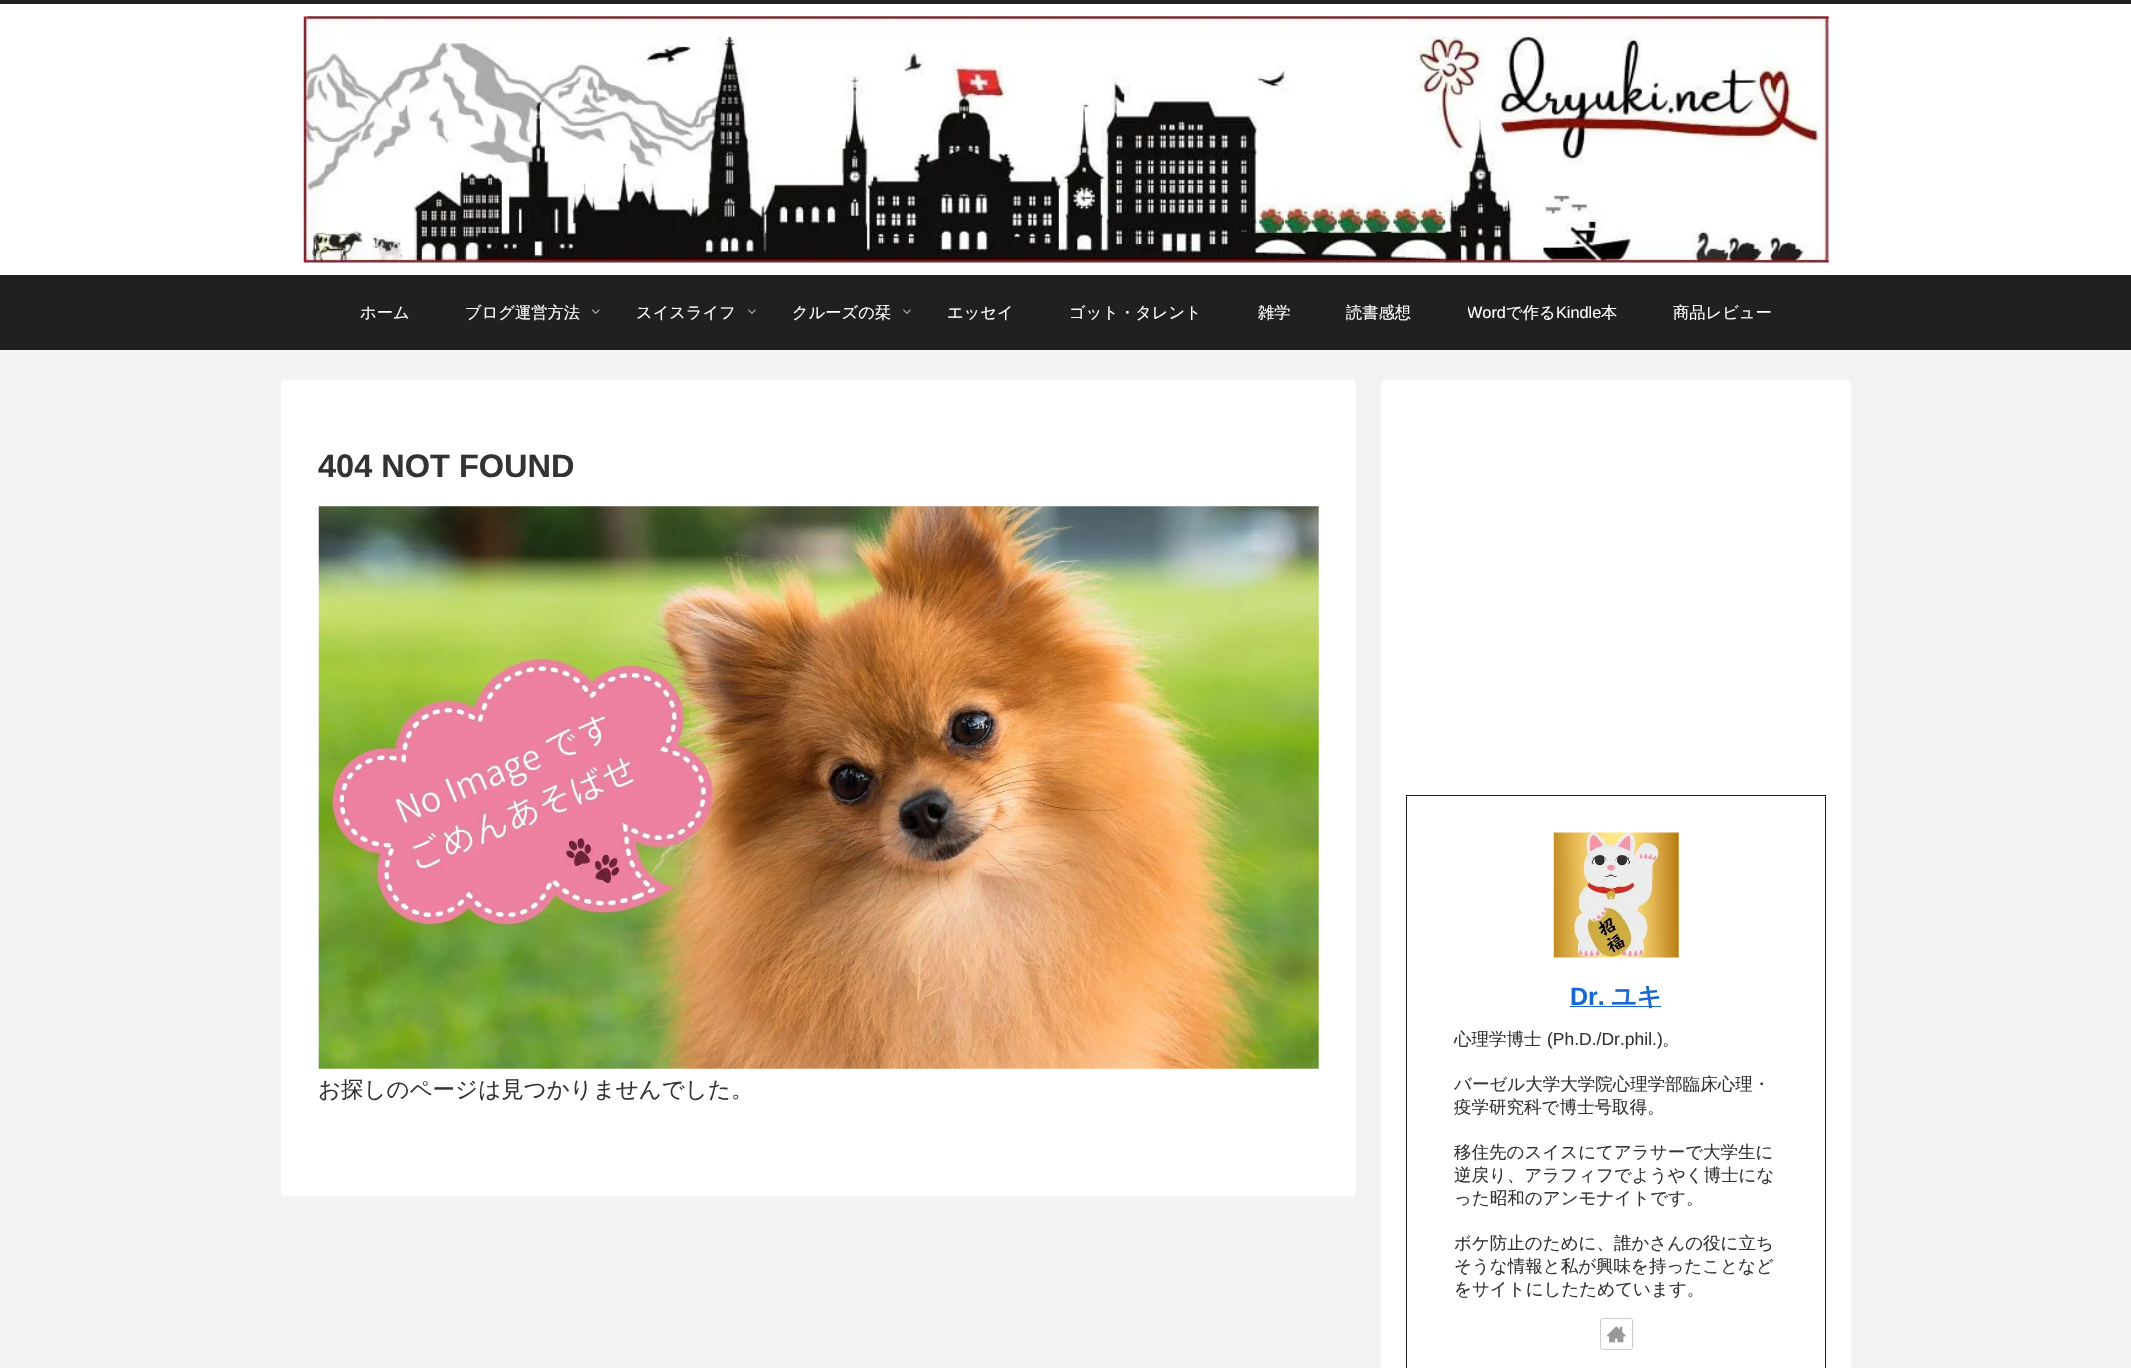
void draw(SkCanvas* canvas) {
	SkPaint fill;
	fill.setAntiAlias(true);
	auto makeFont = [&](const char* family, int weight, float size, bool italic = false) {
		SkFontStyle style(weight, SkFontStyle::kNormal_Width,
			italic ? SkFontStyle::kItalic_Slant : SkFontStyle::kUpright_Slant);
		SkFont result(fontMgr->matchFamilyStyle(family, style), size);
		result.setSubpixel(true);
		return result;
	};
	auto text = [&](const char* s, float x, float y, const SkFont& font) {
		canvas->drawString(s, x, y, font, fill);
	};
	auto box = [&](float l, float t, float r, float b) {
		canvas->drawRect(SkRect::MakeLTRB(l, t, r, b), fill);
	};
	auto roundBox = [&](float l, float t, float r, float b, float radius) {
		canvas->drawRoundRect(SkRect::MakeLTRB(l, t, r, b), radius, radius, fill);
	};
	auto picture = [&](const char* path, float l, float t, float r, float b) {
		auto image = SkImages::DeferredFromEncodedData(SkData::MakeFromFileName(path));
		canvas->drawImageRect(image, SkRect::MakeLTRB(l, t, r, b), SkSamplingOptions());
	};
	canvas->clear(0xFFF2F2F2);
	fill.setColor(0xFFFFFFFF);
	box(0, 4, 2131, 275);
	fill.setColor(0xFF202020);
	box(0, 0, 2131, 4);
	picture("image0.png", 303, 16, 1829, 263);
	box(0, 275, 2131, 350);
	picture("image1.png", 591, 309, 600, 314);
	picture("image2.png", 748, 309, 756, 314);
	picture("image2.png", 903, 309, 911, 314);
	fill.setColor(0xFFFFFFFF);
	roundBox(281, 380, 1356, 1196, 5);
	picture("image3.png", 318, 506, 1319, 1069);
	roundBox(1381, 380, 1851, 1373, 5);
	fill.setStyle(SkPaint::kStroke_Style);
	fill.setStrokeWidth(1);
	fill.setColor(0xFF202020);
	canvas->drawRect(SkRect::MakeLTRB(1406.5f, 795.5f, 1825.5f, 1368.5f), fill);
	picture("image4.png", 1553, 832, 1679, 958);
	fill.setStyle(SkPaint::kFill_Style);
	fill.setColor(0xFF1967D2);
	box(1570, 1006, 1661, 1007);
	fill.setStyle(SkPaint::kStroke_Style);
	fill.setColor(0xFFCCCCCC);
	canvas->drawRoundRect(SkRect::MakeLTRB(1600.5f, 1318.5f, 1632.5f, 1349.5f), 2, 2, fill);
	picture("image5.png", 1606, 1326, 1626, 1343);
	auto font1 = makeFont("WenQuanYi Zen Hei", 500, 16.25f);
	fill.setStyle(SkPaint::kFill_Style);
	fill.setColor(0xFFFFFFFF);
	text("ホーム", 360, 318, font1);
	text("ブログ運営方法", 465, 318, font1);
	text("スイスライフ", 636, 318, font1);
	text("クルーズの栞", 792, 318, font1);
	text("エッセイ", 947, 318, font1);
	text("ゴット・タレント", 1069, 318, font1);
	text("雑学", 1258, 318, font1);
	text("読書感想", 1346, 318, font1);
	canvas->save();
	canvas->clipRect(SkRect::MakeLTRB(1468, 298, 1618, 326));
	auto font2 = makeFont("Liberation Sans", 400, 16.25f);
	text("Word", 1467, 318, font2);
	canvas->restore();
	text("で作る", 1506, 318, font1);
	text("Kindle", 1556, 318, font2);
	text("本", 1601, 318, font1);
	text("商品レビュー", 1673, 318, font1);
	auto font3 = makeFont("Liberation Sans", 700, 32.5f);
	fill.setColor(0xFF333333);
	text("404 NOT FOUND", 318, 477, font3);
	auto font4 = makeFont("WenQuanYi Zen Hei", 500, 22.5f);
	text("お探しのページは見つかりませんでした。", 318, 1097, font4);
	auto font5 = makeFont("Liberation Sans", 700, 25);
	fill.setColor(0xFF1967D2);
	text("Dr.", 1570, 1005, font5);
	auto font6 = makeFont("WenQuanYi Zen Hei", 700, 25);
	text("ユキ", 1611, 1005, font6);
	auto font7 = makeFont("WenQuanYi Zen Hei", 500, 17.5f);
	fill.setColor(0xFF333333);
	text("心理学博士", 1454, 1045, font7);
	auto font8 = makeFont("Liberation Sans", 400, 17.5f);
	text("(Ph.D./Dr.phil.)", 1547, 1045, font8);
	text("。", 1662, 1045, font7);
	text("バーゼル大学大学院心理学部臨床心理・", 1454, 1090, font7);
	text("疫学研究科で博士号取得。", 1454, 1113, font7);
	text("移住先のスイスにてアラサーで大学生に", 1454, 1158, font7);
	text("逆戻り、アラフィフでようやく博士にな", 1454, 1181, font7);
	text("った昭和のアンモナイトです。", 1454, 1204, font7);
	text("ボケ防止のために、誰かさんの役に立ち", 1454, 1249, font7);
	text("そうな情報と私が興味を持ったことなど", 1454, 1272, font7);
	text("をサイトにしたためています。", 1454, 1295, font7);
}
